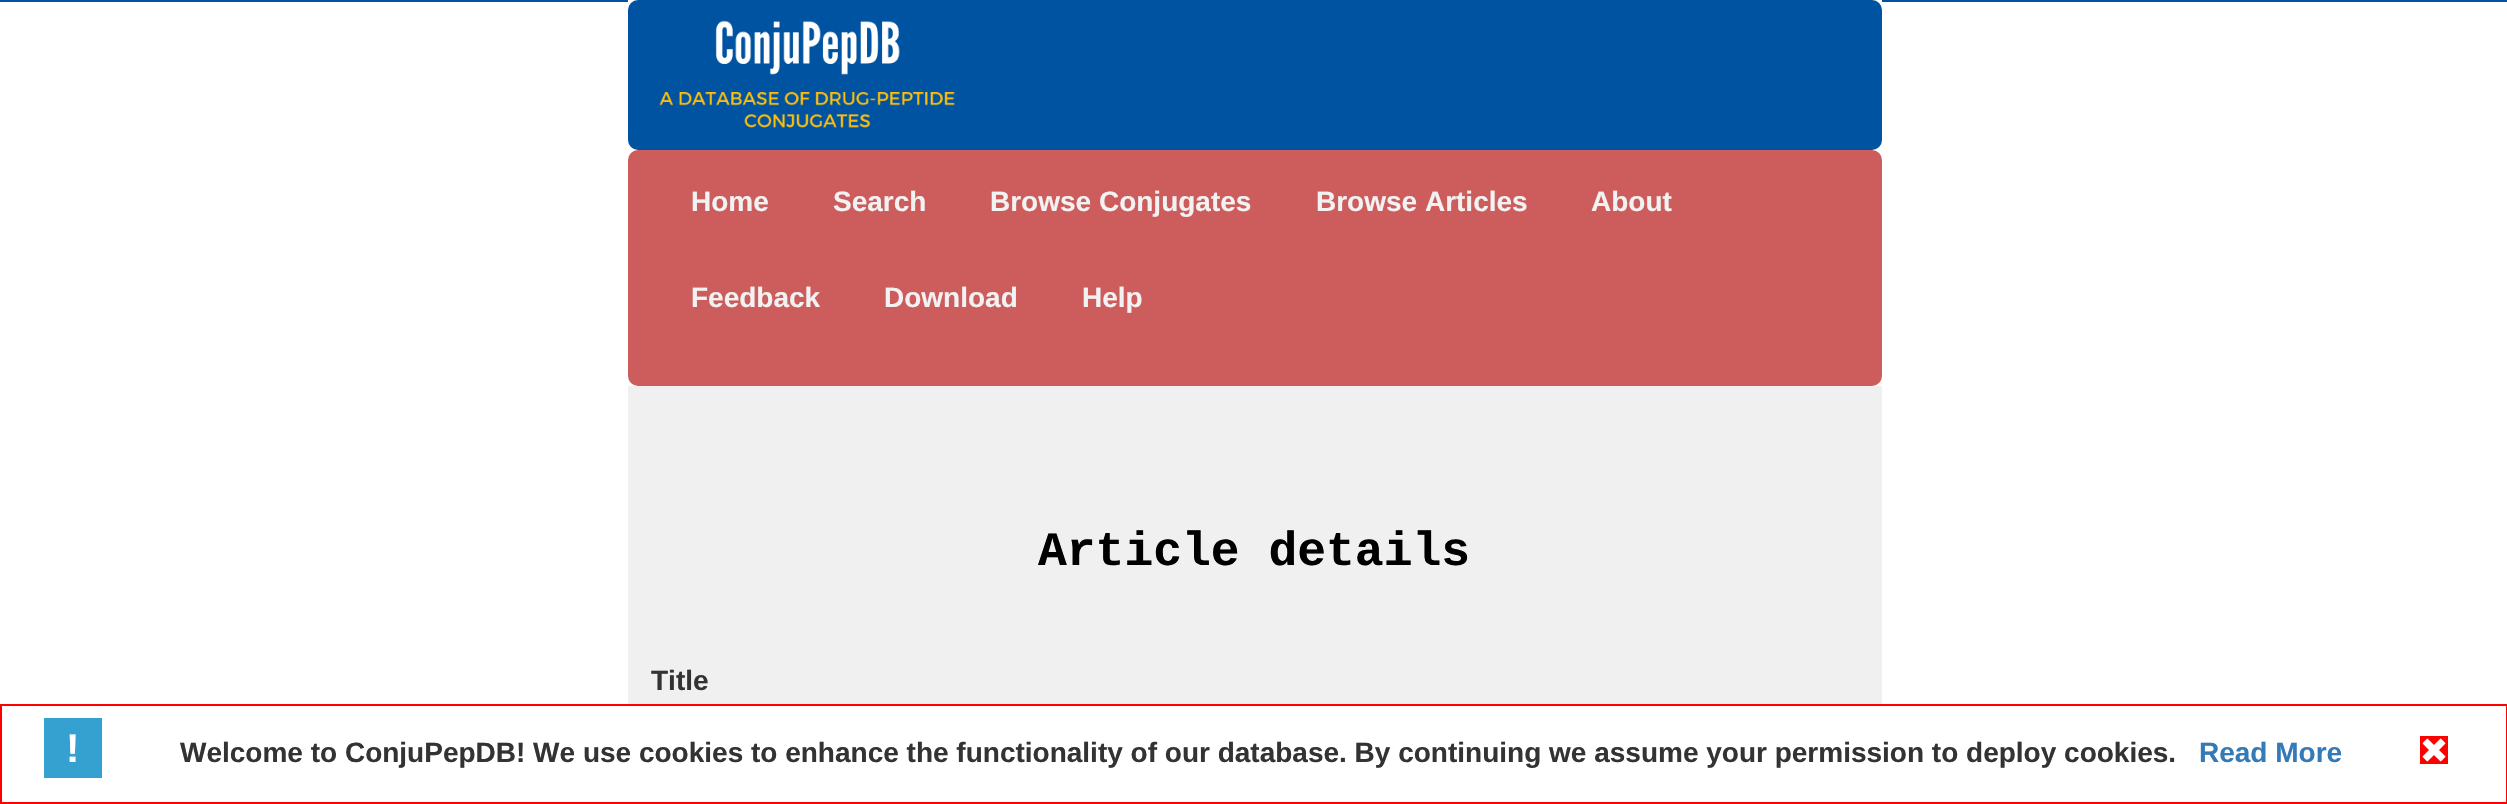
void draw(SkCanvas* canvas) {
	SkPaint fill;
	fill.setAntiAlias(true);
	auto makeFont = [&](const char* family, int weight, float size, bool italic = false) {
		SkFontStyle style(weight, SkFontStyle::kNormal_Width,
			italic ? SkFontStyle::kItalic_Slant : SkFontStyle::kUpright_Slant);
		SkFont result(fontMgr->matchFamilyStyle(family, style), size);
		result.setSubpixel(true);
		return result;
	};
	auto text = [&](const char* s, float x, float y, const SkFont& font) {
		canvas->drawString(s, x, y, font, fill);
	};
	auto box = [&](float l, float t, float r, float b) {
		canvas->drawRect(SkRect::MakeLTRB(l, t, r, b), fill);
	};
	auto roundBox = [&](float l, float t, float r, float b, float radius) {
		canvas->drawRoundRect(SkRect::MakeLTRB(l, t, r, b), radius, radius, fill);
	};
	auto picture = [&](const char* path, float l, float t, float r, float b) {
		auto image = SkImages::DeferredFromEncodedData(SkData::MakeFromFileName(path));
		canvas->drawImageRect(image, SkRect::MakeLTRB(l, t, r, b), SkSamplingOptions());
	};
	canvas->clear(0xFFFFFFFF);
	fill.setColor(0xFF0053A0);
	box(0, 0, 628, 2);
	roundBox(628, 0, 1882, 150, 10);
	picture("image0.png", 659, 20, 955, 128);
	box(1882, 0, 2507, 2);
	fill.setColor(0xFFCD5C5C);
	roundBox(628, 150, 1882, 386, 10);
	fill.setColor(0xFFF0F0F0);
	box(628, 386, 1882, 704);
	fill.setStyle(SkPaint::kStroke_Style);
	fill.setStrokeWidth(2);
	fill.setColor(0xFFFF0000);
	canvas->drawRect(SkRect::MakeLTRB(1, 705, 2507, 803), fill);
	fill.setStyle(SkPaint::kFill_Style);
	fill.setColor(0xFF35A1D0);
	box(44, 718, 102, 778);
	fill.setColor(0xFFFF0000);
	box(2420, 736, 2448, 764);
	picture("image1.png", 2422, 738, 2446, 762);
	auto font1 = makeFont("Liberation Sans", 700, 28);
	fill.setColor(0xFFF2F2F2);
	text("Home", 691, 211, font1);
	text("Search", 833, 211, font1);
	text("Browse Conjugates", 990, 211, font1);
	text("Browse Articles", 1316, 211, font1);
	text("About", 1591, 211, font1);
	text("Feedback", 691, 307, font1);
	text("Download", 884, 307, font1);
	text("Help", 1082, 307, font1);
	auto font2 = makeFont("Liberation Mono", 700, 48);
	fill.setColor(0xFF000000);
	text("Article details", 1038, 565, font2);
	fill.setColor(0xFF333333);
	text("Title", 651, 690, font1);
	auto font3 = makeFont("Liberation Sans", 700, 40);
	fill.setColor(0xFFFFFFFF);
	text("!", 66, 762, font3);
	fill.setColor(0xFF333333);
	text("Welcome to ConjuPepDB! We use cookies to enhance the functionality of our database. By continuing we assume your permission to deploy cookies.", 180, 762, font1);
	fill.setColor(0xFF337AB7);
	text("Read More", 2199, 762, font1);
}
